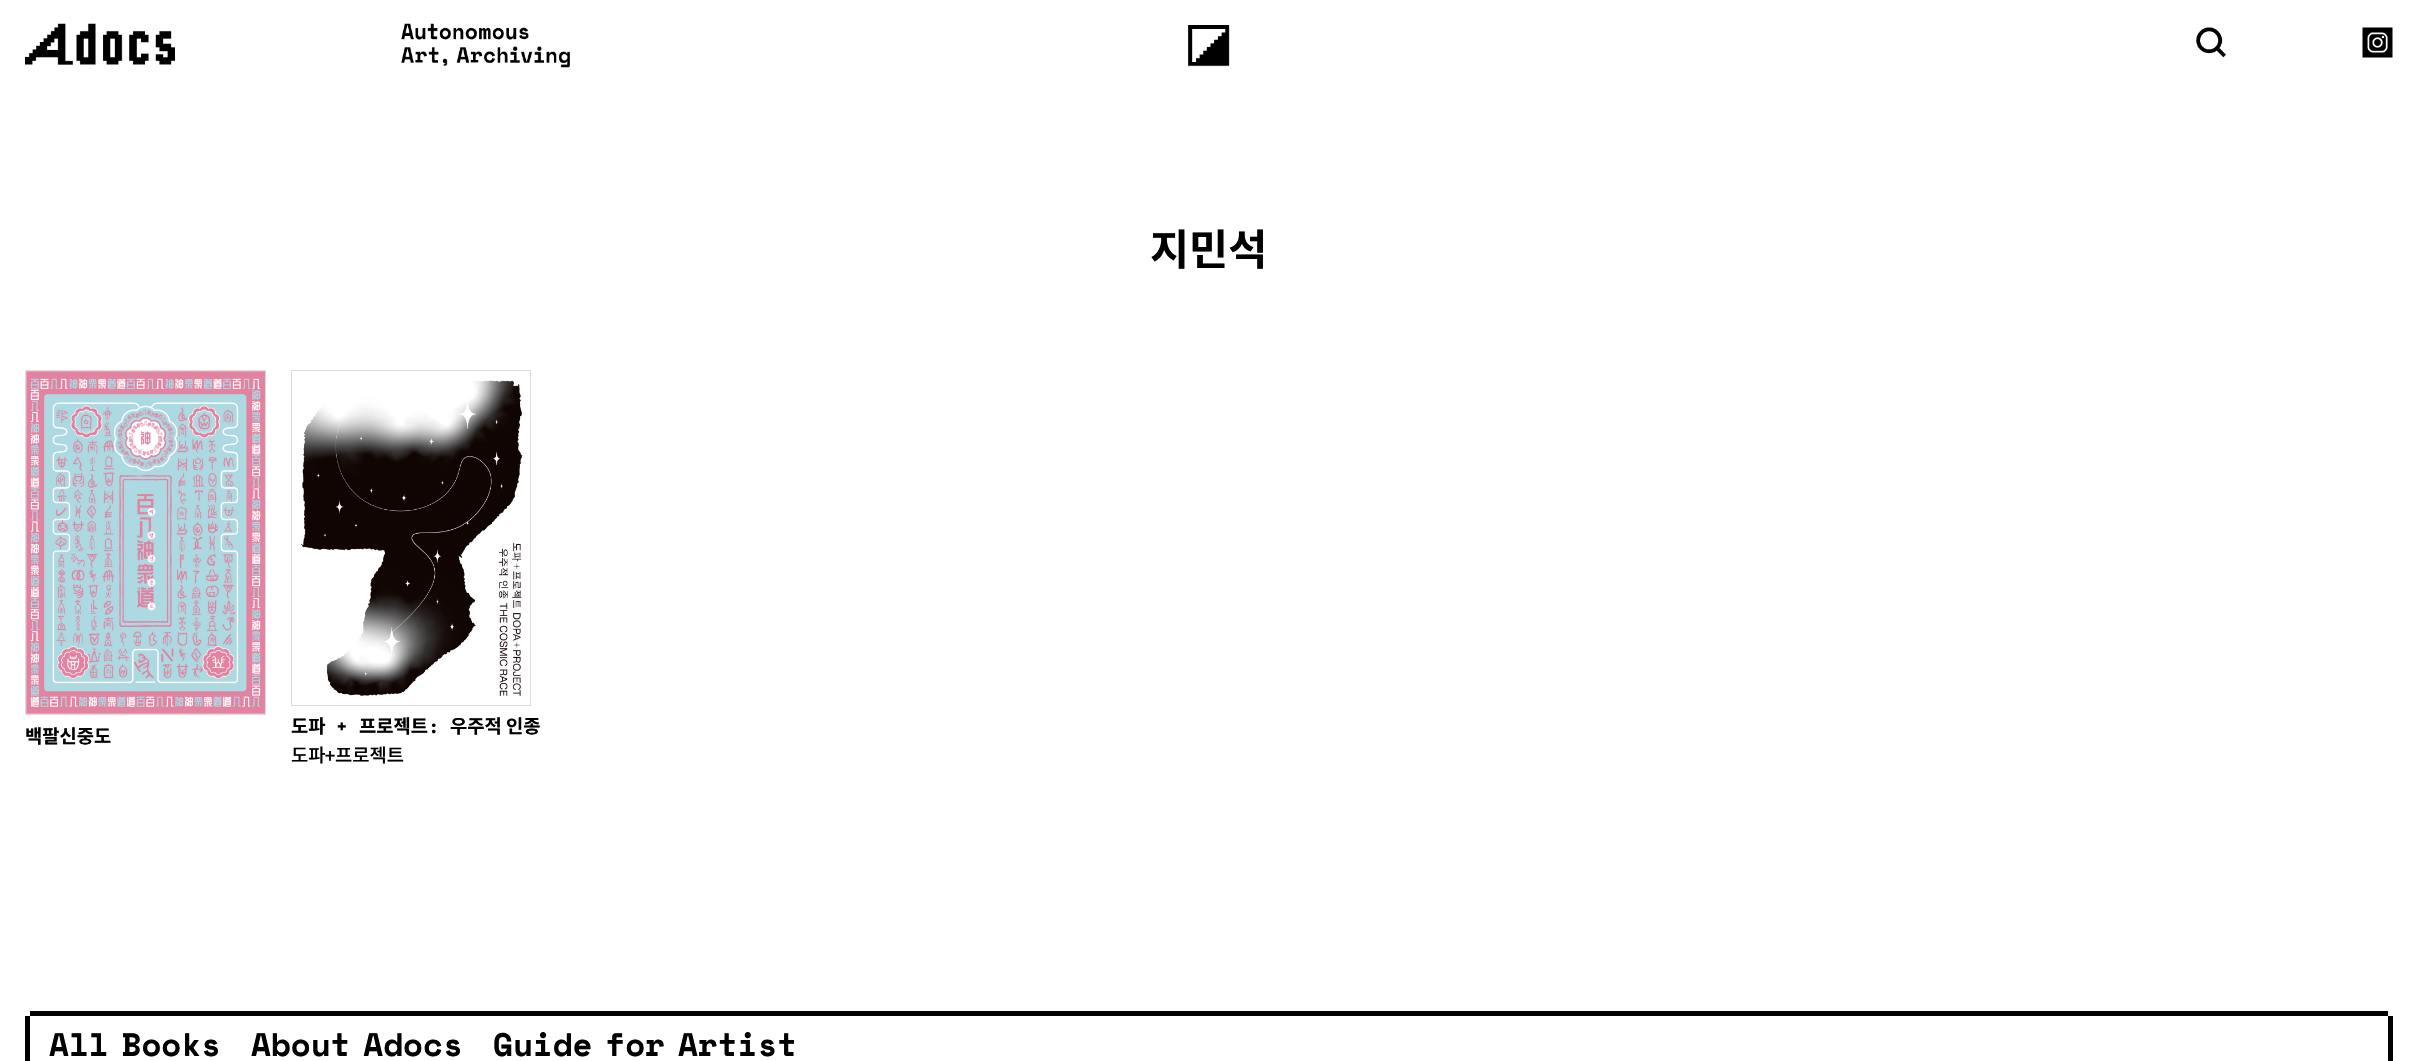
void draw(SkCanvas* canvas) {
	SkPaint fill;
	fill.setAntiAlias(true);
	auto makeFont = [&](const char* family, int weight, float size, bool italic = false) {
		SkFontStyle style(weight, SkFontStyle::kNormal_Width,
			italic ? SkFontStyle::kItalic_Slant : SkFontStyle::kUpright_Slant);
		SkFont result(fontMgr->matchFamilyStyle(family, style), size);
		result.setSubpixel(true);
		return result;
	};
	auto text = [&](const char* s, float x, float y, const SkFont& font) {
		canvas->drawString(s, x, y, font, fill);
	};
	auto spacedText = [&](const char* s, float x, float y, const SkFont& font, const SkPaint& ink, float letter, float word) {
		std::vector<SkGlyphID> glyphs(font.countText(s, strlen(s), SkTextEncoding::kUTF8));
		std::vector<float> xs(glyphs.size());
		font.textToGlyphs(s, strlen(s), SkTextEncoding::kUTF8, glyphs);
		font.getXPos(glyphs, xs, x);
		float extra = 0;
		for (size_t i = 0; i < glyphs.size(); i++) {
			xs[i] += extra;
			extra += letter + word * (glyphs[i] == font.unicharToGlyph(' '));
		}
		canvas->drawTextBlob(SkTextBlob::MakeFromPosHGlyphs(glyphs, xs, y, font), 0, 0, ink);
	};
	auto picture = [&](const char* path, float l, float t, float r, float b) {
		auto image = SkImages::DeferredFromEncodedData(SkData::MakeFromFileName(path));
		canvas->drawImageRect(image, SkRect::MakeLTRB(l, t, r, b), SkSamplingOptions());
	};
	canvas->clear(0xFFFFFFFF);
	picture("image0.png", 1188, 25, 1230, 67);
	picture("image1.png", 25, 23, 175, 65);
	picture("image2.png", 401, 23, 570, 68);
	picture("image3.png", 2196, 27, 2227, 58);
	picture("image4.png", 2362, 27, 2393, 58);
	fill.setStyle(SkPaint::kStroke_Style);
	fill.setStrokeWidth(1);
	fill.setColor(0xFFDBDBDB);
	canvas->drawRect(SkRect::MakeLTRB(25.5f, 370.5f, 265.5f, 714.5f), fill);
	picture("image5.png", 26, 371, 265, 714);
	canvas->drawRect(SkRect::MakeLTRB(291.5f, 370.5f, 530.5f, 705.5f), fill);
	picture("image6.png", 301, 380, 523, 696);
	fill.setStyle(SkPaint::kFill_Style);
	fill.setColor(0xFF000000);
	canvas->drawPath(SkPathBuilder().moveTo(25, 1016).lineTo(25, 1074).lineTo(2383, 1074).lineTo(30, 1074).lineTo(30, 1016).lineTo(2383, 1016).close().detach(), fill);
	canvas->drawPath(SkPathBuilder().moveTo(30, 1011).lineTo(30, 1016).lineTo(2388, 1016).lineTo(2388, 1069).lineTo(2388, 1011).close().detach(), fill);
	canvas->drawPath(SkPathBuilder().moveTo(35, 1016).lineTo(2388, 1016).lineTo(2388, 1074).lineTo(35, 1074).lineTo(2393, 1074).lineTo(2393, 1016).close().detach(), fill);
	auto font1 = makeFont("Noto Sans KR", 700, 42.5f);
	text("지민석", 1150, 265, font1);
	auto font2 = makeFont("Noto Sans KR", 700, 18.75f);
	text("백팔신중도", 25, 743, font2);
	text("도파", 291, 733, font2);
	auto font3 = makeFont("Space Mono", 700, 18.75f);
	text("+", 336, 733, font3);
	text("프로젝트", 359, 733, font2);
	text(":", 428, 733, font3);
	text("우주적 인종", 450, 733, font2);
	auto font4 = makeFont("Noto Sans KR", 500, 18.75f);
	text("도파", 291, 762, font4);
	auto font5 = makeFont("Heebo", 400, 18.75f);
	text("+", 325, 762, font5);
	text("프로젝트", 335, 762, font4);
	auto font6 = makeFont("Space Mono", 700, 32.5f);
	spacedText("All Books", 49, 1056, font6, fill, 0, -7);
	spacedText("About Adocs", 251, 1056, font6, fill, 0, -7);
	spacedText("Guide for Artist", 493, 1056, font6, fill, 0, -7);
}
